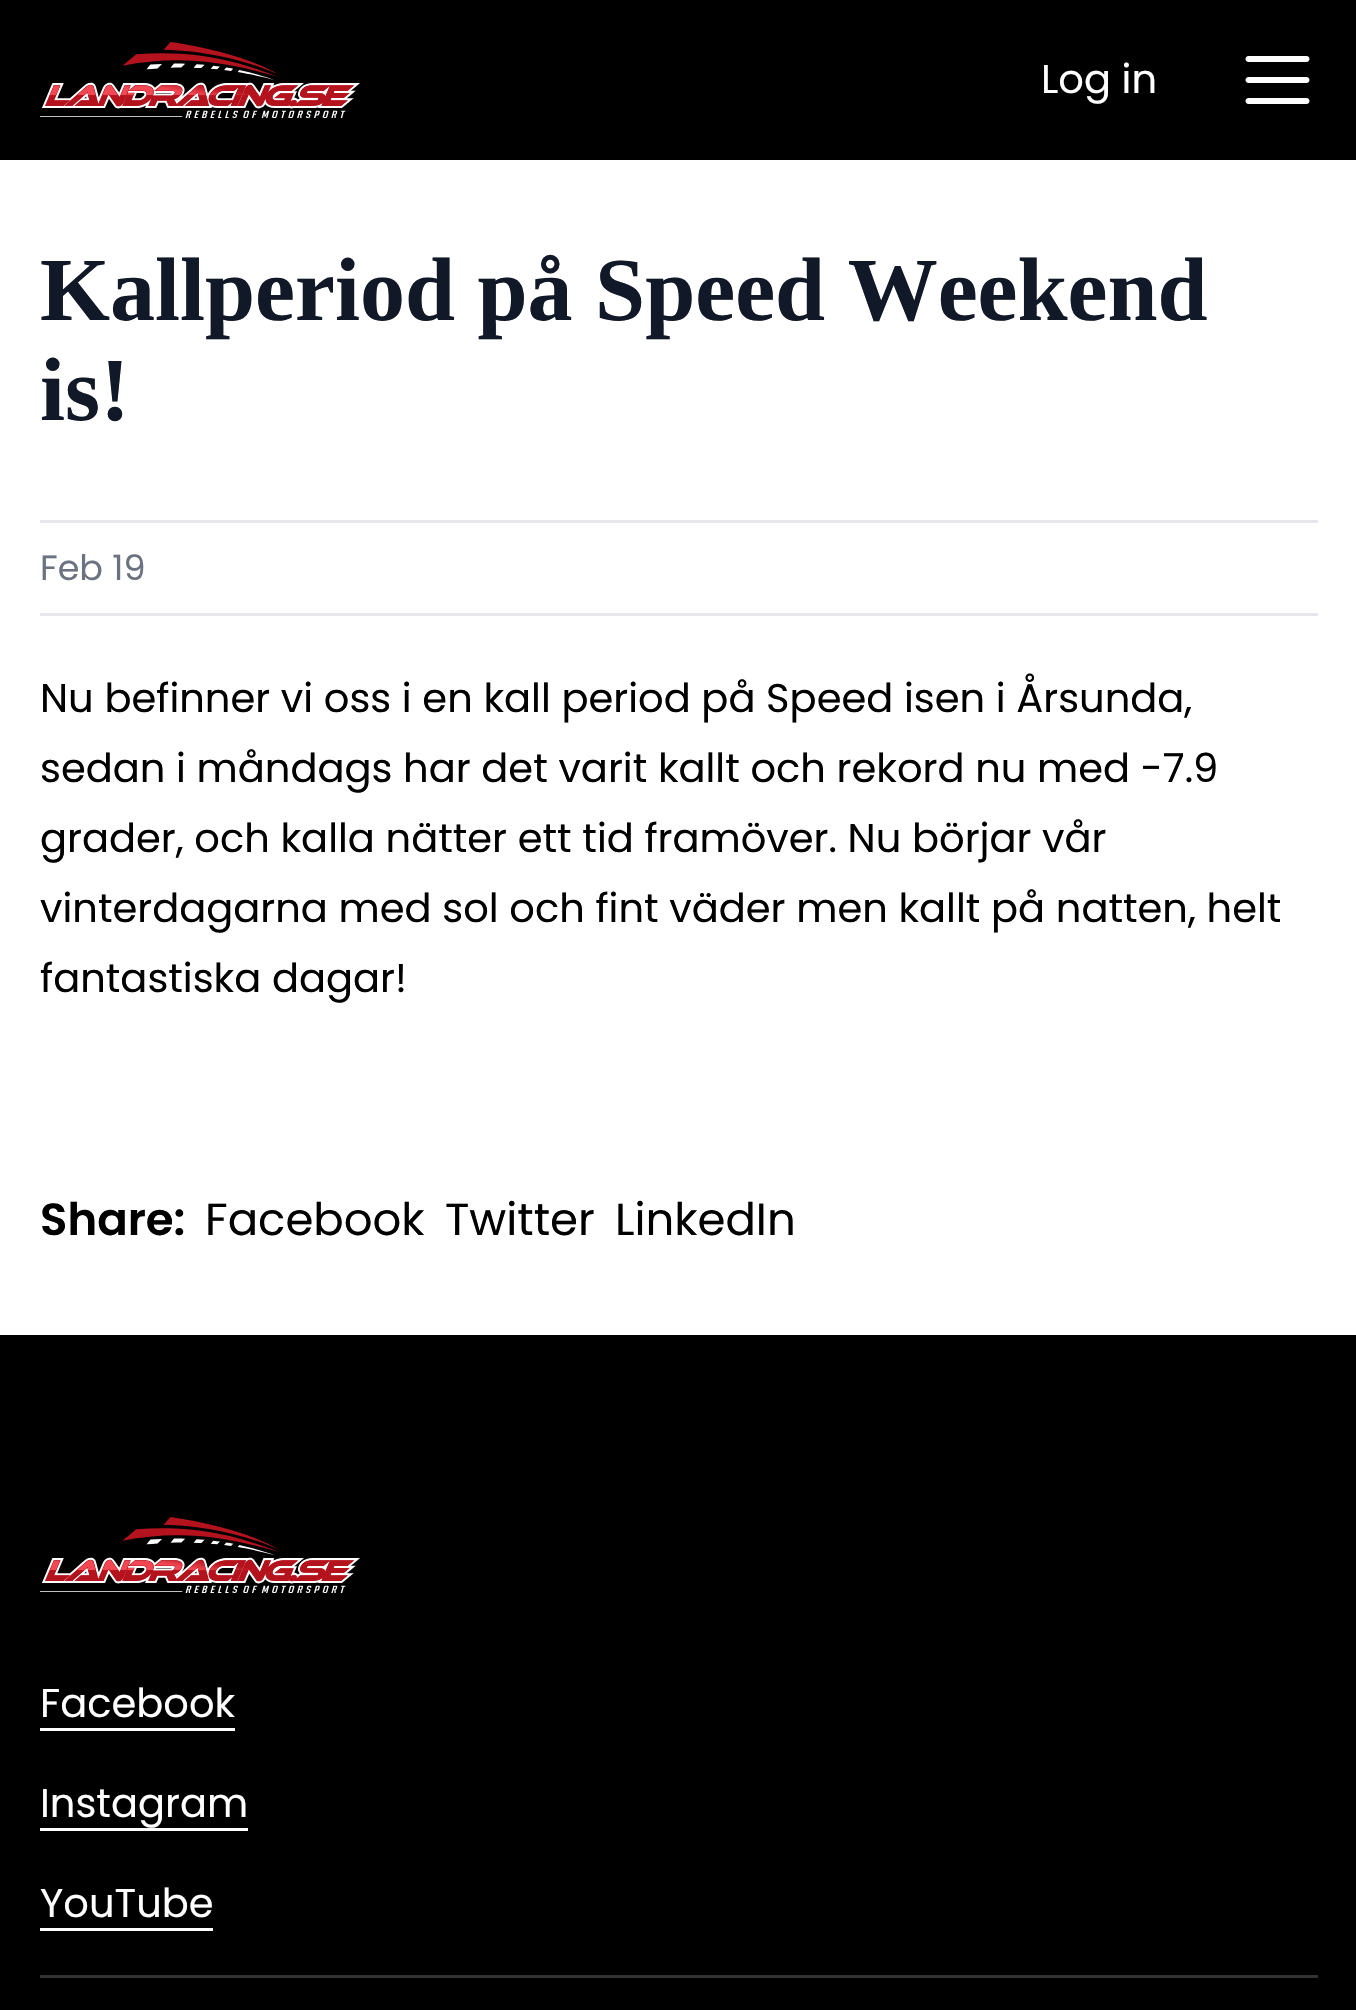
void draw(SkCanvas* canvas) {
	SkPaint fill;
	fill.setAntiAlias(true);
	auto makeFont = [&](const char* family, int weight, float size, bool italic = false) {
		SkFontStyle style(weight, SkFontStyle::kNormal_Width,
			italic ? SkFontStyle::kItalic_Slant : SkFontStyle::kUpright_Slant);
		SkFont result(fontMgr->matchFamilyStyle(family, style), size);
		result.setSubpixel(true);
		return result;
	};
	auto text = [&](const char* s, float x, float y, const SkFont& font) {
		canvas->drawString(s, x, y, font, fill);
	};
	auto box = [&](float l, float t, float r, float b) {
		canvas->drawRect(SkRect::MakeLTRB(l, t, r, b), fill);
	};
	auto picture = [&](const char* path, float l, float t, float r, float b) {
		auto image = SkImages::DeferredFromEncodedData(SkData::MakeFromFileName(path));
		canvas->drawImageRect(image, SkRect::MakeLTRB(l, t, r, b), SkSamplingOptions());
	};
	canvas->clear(0xFFFFFFFF);
	fill.setColor(0xFF000000);
	box(0, 0, 1356, 160);
	picture("image0.png", 40, 42, 360, 118);
	picture("image1.png", 1245, 56, 1310, 104);
	fill.setColor(0xFFE5E7EB);
	box(40, 520, 1318, 523);
	box(40, 613, 1318, 616);
	fill.setColor(0xFF000000);
	box(0, 1335, 1356, 2010);
	picture("image2.png", 40, 1517, 360, 1593);
	fill.setColor(0xFFFFFFFF);
	box(40, 1728, 235, 1731);
	box(40, 1828, 248, 1831);
	box(40, 1928, 213, 1931);
	fill.setColor(0xFF333333);
	box(40, 1975, 1318, 1978);
	auto font1 = makeFont("Poppins", 400, 40);
	fill.setColor(0xFFFFFFFF);
	text("Log in", 1041, 93, font1);
	auto font2 = makeFont("Liberation Serif", 700, 90);
	fill.setColor(0xFF111827);
	text("Kallperiod på Speed Weekend", 40, 320, font2);
	text("is!", 40, 420, font2);
	auto font3 = makeFont("Poppins", 400, 35);
	fill.setColor(0xFF6B7280);
	text("Feb 19", 40, 580, font3);
	fill.setColor(0xFF000000);
	text("Nu befinner vi oss i en kall period på Speed isen i Årsunda,", 40, 712, font1);
	text("sedan i måndags har det varit kallt och rekord nu med -7.9", 40, 782, font1);
	text("grader, och kalla nätter ett tid framöver. Nu börjar vår", 40, 852, font1);
	text("vinterdagarna med sol och fint väder men kallt på natten, helt", 40, 922, font1);
	text("fantastiska dagar!", 40, 992, font1);
	auto font4 = makeFont("Poppins", 600, 45);
	text("Share:", 40, 1235, font4);
	auto font5 = makeFont("Poppins", 400, 45);
	text("Facebook", 205, 1235, font5);
	text("Twitter", 445, 1235, font5);
	text("LinkedIn", 615, 1235, font5);
	fill.setColor(0xFFFFFFFF);
	text("Facebook", 40, 1717, font1);
	text("Instagram", 40, 1817, font1);
	text("YouTube", 40, 1917, font1);
}
